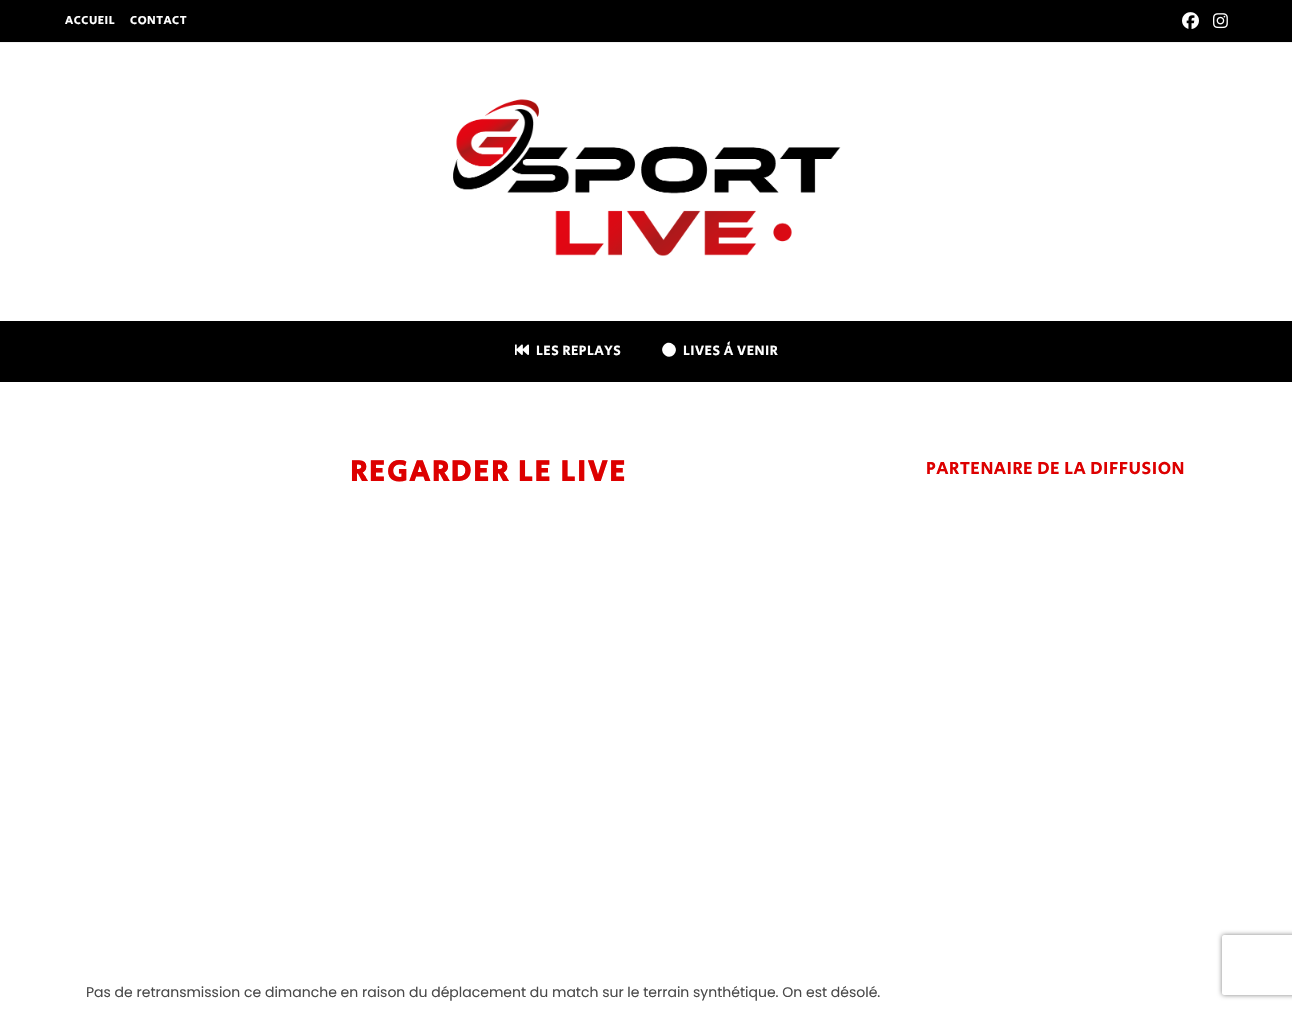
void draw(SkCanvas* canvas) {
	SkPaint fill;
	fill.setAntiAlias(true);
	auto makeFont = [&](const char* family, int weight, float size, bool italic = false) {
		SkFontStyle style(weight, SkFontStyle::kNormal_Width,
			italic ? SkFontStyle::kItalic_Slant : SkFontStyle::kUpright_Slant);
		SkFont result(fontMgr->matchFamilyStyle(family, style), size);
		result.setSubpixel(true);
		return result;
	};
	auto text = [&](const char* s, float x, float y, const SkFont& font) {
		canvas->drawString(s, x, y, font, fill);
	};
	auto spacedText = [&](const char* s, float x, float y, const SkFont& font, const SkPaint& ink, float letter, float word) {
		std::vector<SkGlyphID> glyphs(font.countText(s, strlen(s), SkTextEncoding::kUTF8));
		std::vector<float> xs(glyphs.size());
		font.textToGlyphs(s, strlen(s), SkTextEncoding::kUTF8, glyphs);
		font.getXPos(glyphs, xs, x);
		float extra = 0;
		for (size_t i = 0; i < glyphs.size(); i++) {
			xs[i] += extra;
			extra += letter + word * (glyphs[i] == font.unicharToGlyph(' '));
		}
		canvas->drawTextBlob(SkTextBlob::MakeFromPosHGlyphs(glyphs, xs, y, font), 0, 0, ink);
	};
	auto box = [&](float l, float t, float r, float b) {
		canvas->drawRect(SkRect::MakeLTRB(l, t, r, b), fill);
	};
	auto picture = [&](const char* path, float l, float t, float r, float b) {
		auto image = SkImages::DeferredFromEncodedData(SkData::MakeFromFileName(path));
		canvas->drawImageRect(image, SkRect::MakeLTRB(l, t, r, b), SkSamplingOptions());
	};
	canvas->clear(0xFFFFFFFF);
	fill.setColor(0xFF000000);
	box(0, 0, 1292, 42);
	fill.setColor(0xFFF1F1F1);
	box(0, 42, 1292, 43);
	picture("image0.png", 1182, 12, 1199, 29);
	picture("image1.png", 1213, 13, 1228, 29);
	picture("image2.png", 453, 99, 841, 256);
	fill.setColor(0xFF000000);
	box(0, 321, 1292, 382);
	picture("image3.png", 515, 344, 529, 355);
	fill.setColor(0xFFFFFFFF);
	canvas->drawPath(SkPathBuilder().moveTo(664, 345).cubicTo(670.5f, 338.5f, 680, 348, 674, 354.5f).cubicTo(667.5f, 361, 658, 351.5f, 664, 345).close().detach(), fill);
	canvas->save();
	canvas->clipPath(SkPathBuilder(SkPathFillType::kEvenOdd).moveTo(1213, 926).lineTo(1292, 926).lineTo(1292, 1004).lineTo(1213, 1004).close().moveTo(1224, 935).lineTo(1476, 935).cubicTo(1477, 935, 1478, 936, 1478, 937).lineTo(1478, 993).cubicTo(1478, 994, 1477, 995, 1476, 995).lineTo(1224, 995).cubicTo(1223, 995, 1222, 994, 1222, 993).lineTo(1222, 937).cubicTo(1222, 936, 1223, 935, 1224, 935).close().detach(), true);
	fill.setColor(0xFF808080);
	fill.setMaskFilter(SkMaskFilter::MakeBlur(kNormal_SkBlurStyle, 2.5f));
	canvas->drawRoundRect(SkRect::MakeLTRB(1222, 935, 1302, 995), 2, 2, fill);
	fill.setMaskFilter(nullptr);
	canvas->restore();
	auto font1 = makeFont("Secular One", 400, 12);
	fill.setColor(0xFFFFFFFF);
	spacedText("ACCUEIL", 65, 24, font1, fill, 0.5f, 0);
	spacedText("CONTACT", 130, 24, font1, fill, 0.5f, 0);
	auto font2 = makeFont("Secular One", 400, 14);
	spacedText("LES REPLAYS", 536, 355, font2, fill, 0.5f, 0);
	spacedText("LIVES À VENIR", 683, 355, font2, fill, 0.5f, 0);
	auto font3 = makeFont("Secular One", 700, 30);
	fill.setColor(0xFFDD0000);
	spacedText("REGARDER LE LIVE", 350, 481, font3, fill, 2, 0);
	auto font4 = makeFont("Poppins", 400, 14);
	fill.setColor(0xFF4A4A4A);
	text("Pas de retransmission ce dimanche en raison du déplacement du match sur le terrain synthétique. On est désolé.", 86, 997, font4);
	auto font5 = makeFont("Secular One", 400, 18);
	fill.setColor(0xFFDD0000);
	spacedText("PARTENAIRE DE LA DIFFUSION", 926, 474, font5, fill, 0.5f, 0);
}
